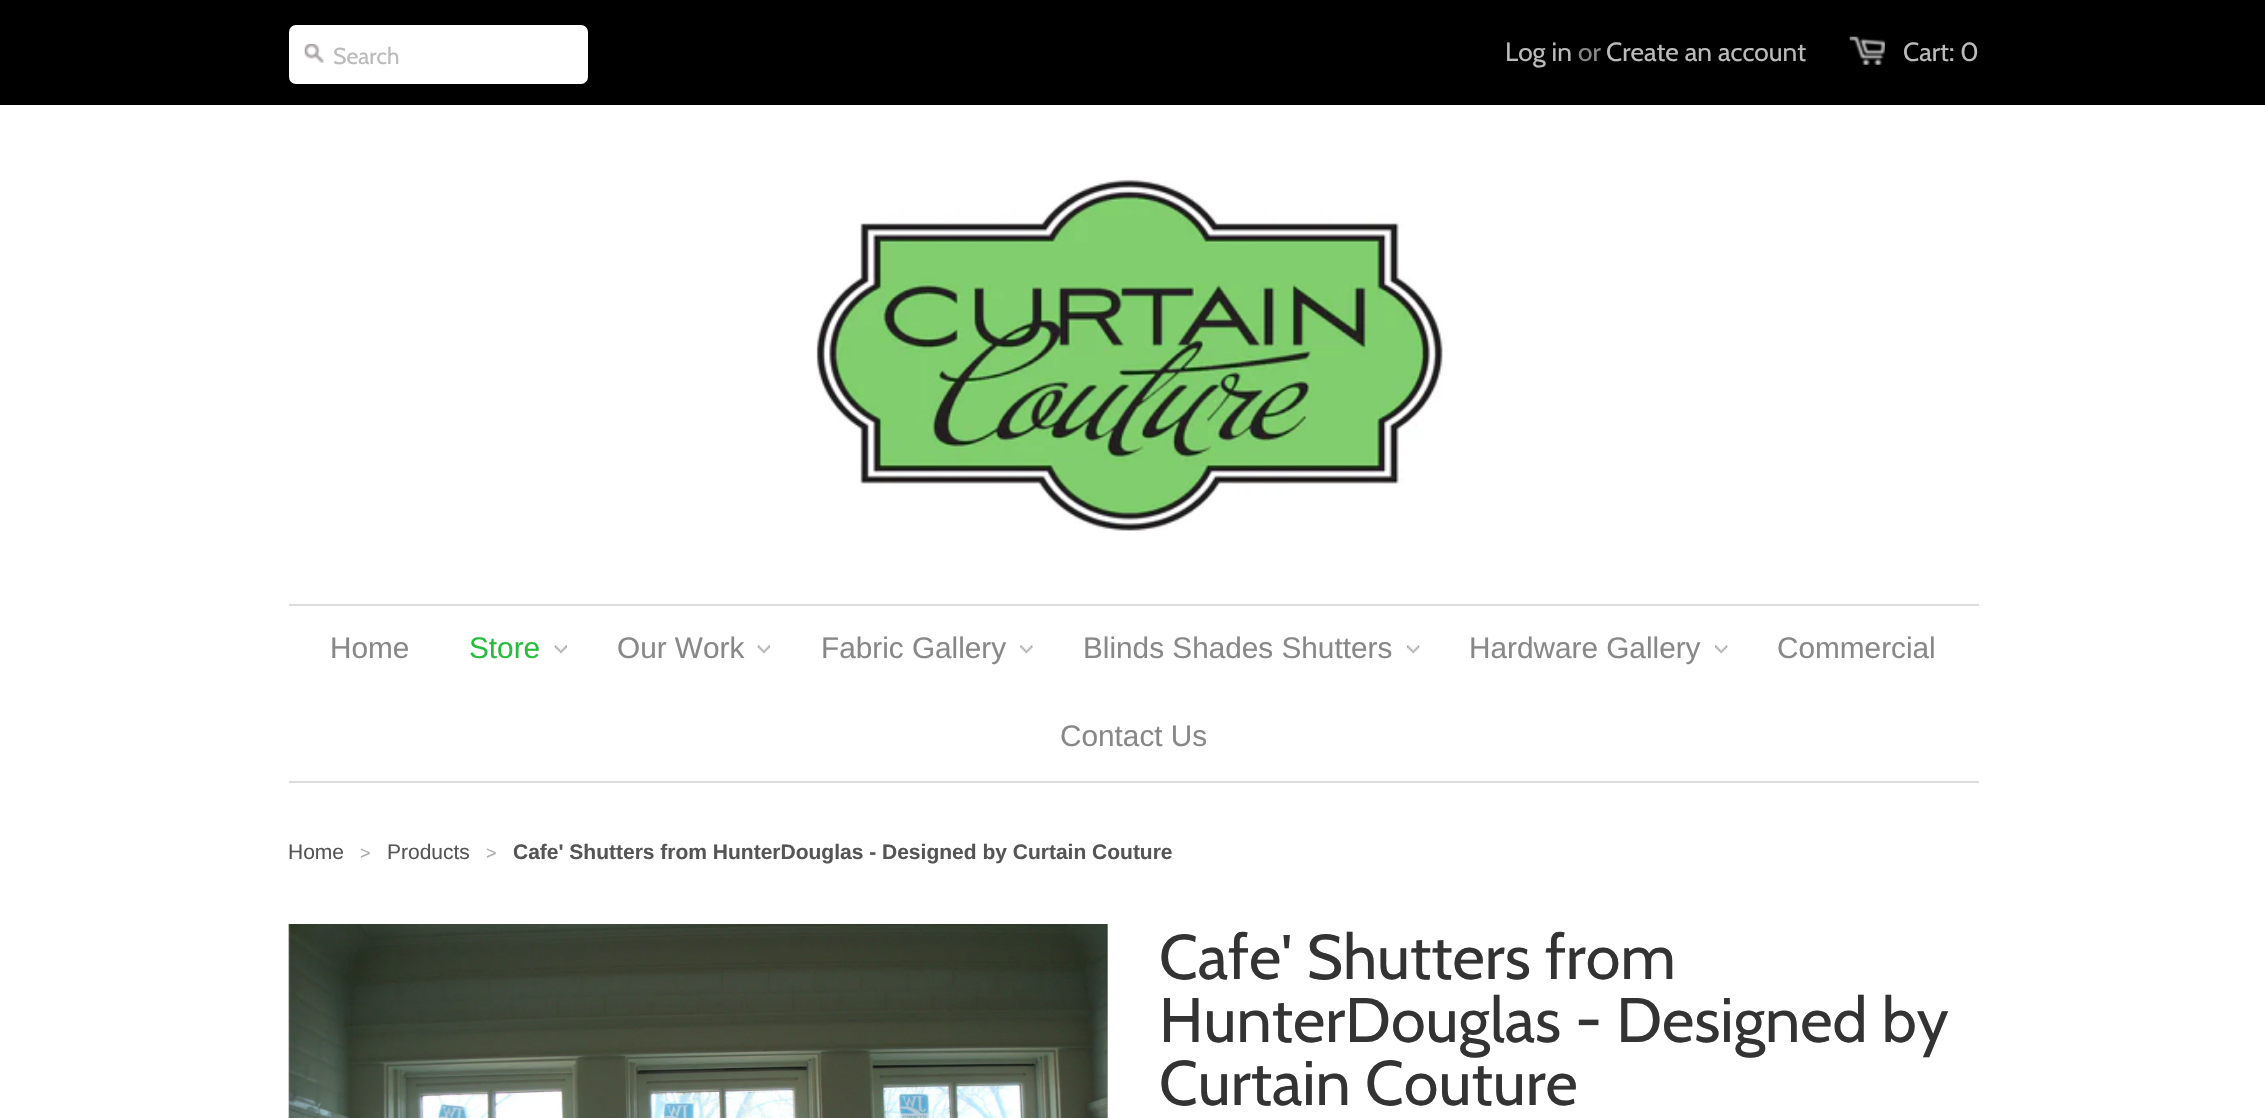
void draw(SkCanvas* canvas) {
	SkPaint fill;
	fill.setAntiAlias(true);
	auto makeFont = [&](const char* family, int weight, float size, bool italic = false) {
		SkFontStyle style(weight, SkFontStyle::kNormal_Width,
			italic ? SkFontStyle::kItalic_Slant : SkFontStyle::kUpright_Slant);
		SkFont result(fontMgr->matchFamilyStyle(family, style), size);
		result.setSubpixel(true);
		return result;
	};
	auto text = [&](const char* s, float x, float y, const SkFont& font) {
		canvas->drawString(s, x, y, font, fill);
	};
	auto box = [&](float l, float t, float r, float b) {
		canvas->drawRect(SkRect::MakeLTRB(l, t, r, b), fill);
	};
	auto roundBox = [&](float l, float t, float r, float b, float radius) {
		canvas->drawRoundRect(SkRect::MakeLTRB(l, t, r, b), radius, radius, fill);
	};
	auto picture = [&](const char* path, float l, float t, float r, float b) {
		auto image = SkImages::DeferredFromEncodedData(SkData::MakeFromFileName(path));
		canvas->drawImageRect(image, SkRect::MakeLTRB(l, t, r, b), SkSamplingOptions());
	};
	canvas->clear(0xFFFFFFFF);
	fill.setColor(0xFF000000);
	box(0, 0, 2265, 105);
	fill.setColor(0xFFFFFFFF);
	roundBox(289, 25, 588, 84, 7);
	picture("image0.png", 304, 43, 324, 63);
	picture("image1.png", 1849, 36, 1885, 65);
	picture("image2.png", 816, 179, 1443, 531);
	fill.setColor(0xFFDDDDDD);
	box(289, 604, 1979, 606);
	box(289, 781, 1979, 783);
	picture("image3.png", 554, 645, 567, 654);
	picture("image4.png", 757, 645, 770, 654);
	picture("image5.png", 1020, 645, 1033, 654);
	picture("image6.png", 1407, 645, 1420, 654);
	picture("image6.png", 1715, 645, 1728, 654);
	picture("image7.png", 288, 924, 1108, 1118);
	auto font1 = makeFont("Cabin", 400, 23);
	fill.setColor(0xFFBBBBBB);
	text("Search", 333, 64, font1);
	auto font2 = makeFont("Cabin", 400, 26.25f);
	text("Log in", 1505, 61, font2);
	fill.setColor(0xFF888888);
	text("or", 1578, 61, font2);
	fill.setColor(0xFFBBBBBB);
	text("Create an account", 1606, 61, font2);
	text("Cart: 0", 1903, 61, font2);
	auto font3 = makeFont("Liberation Sans", 400, 29.75f);
	fill.setColor(0xFF888888);
	text("Home", 330, 658, font3);
	fill.setColor(0xFF27BC3C);
	text("Store", 469, 658, font3);
	fill.setColor(0xFF888888);
	text("Our Work", 617, 658, font3);
	text("Fabric Gallery", 821, 658, font3);
	text("Blinds Shades Shutters", 1083, 658, font3);
	text("Hardware Gallery", 1469, 658, font3);
	text("Commercial", 1777, 658, font3);
	text("Contact Us", 1060, 746, font3);
	auto font4 = makeFont("Liberation Sans", 400, 21);
	fill.setColor(0xFF555555);
	text("Home", 288, 859, font4);
	auto font5 = makeFont("Liberation Sans", 400, 18);
	fill.setColor(0xFFAAAAAA);
	text(">", 360, 859, font5);
	fill.setColor(0xFF555555);
	text("Products", 387, 859, font4);
	fill.setColor(0xFFAAAAAA);
	text(">", 486, 859, font5);
	auto font6 = makeFont("Liberation Sans", 700, 21);
	fill.setColor(0xFF555555);
	text("Cafe' Shutters from HunterDouglas - Designed by Curtain Couture", 513, 859, font6);
	auto font7 = makeFont("Cabin", 400, 63);
	fill.setColor(0xFF333333);
	text("Cafe' Shutters from", 1159, 979, font7);
	text("HunterDouglas - Designed by", 1159, 1042, font7);
	text("Curtain Couture", 1159, 1105, font7);
}
